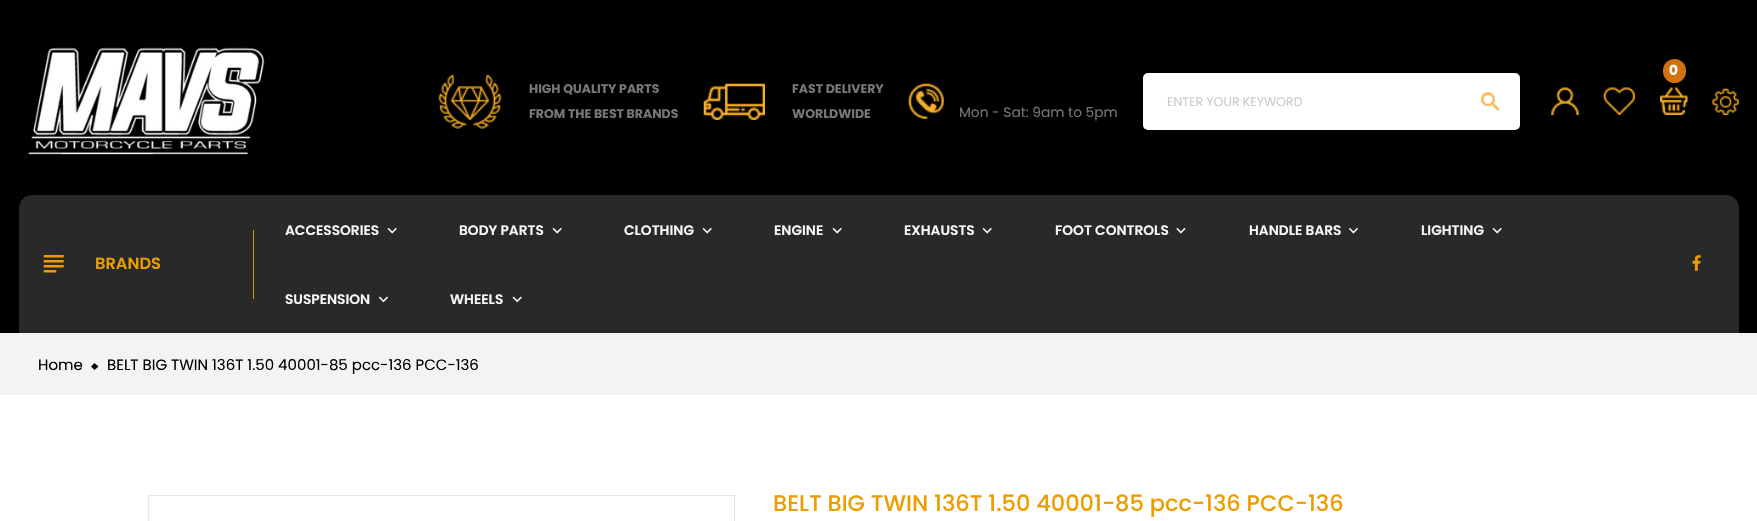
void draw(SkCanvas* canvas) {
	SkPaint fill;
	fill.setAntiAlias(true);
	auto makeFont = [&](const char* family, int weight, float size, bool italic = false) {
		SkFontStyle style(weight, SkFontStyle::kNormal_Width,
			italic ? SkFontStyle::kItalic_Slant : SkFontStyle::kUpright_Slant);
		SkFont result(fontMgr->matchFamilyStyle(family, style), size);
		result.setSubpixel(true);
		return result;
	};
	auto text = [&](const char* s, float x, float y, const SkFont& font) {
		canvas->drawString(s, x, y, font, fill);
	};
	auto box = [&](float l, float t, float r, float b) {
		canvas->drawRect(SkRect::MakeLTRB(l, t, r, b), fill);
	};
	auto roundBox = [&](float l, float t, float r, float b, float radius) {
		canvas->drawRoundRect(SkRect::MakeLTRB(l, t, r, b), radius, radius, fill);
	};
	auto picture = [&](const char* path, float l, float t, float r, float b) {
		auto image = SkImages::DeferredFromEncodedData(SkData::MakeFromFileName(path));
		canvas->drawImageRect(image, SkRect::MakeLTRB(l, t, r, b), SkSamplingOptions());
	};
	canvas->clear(0xFFFFFFFF);
	fill.setColor(0xFF000000);
	box(0, 0, 1757, 333);
	picture("image0.png", 28, 47, 265, 155);
	fill.setColor(0xFFD3710F);
	roundBox(1663, 59, 1686, 83, 11.5f);
	picture("image1.png", 1660, 87, 1688, 115);
	picture("image2.png", 1551, 87, 1579, 115);
	picture("image3.png", 1603, 87, 1635, 115);
	picture("image4.png", 1712, 88, 1739, 115);
	picture("image5.png", 438, 74, 502, 129);
	picture("image6.png", 703, 83, 765, 120);
	picture("image7.png", 908, 83, 944, 119);
	fill.setColor(0xFFFFFFFF);
	roundBox(1143, 73, 1520, 130, 5);
	picture("image8.png", 1481, 92, 1500, 112);
	fill.setColor(0xFF292929);
	canvas->drawPath(SkPathBuilder().moveTo(32, 195).lineTo(1726, 195).cubicTo(1733, 195, 1739, 201, 1739, 208).lineTo(1739, 333).lineTo(19, 333).lineTo(19, 208).cubicTo(19, 201, 25, 195, 32, 195).close().detach(), fill);
	fill.setColor(0xFFDF9300);
	box(253, 230, 254, 299);
	picture("image9.png", 43, 255, 64, 273);
	picture("image10.png", 387, 227, 397, 234);
	picture("image10.png", 552, 227, 562, 234);
	picture("image10.png", 702, 227, 712, 234);
	picture("image10.png", 832, 227, 842, 234);
	picture("image10.png", 982, 227, 992, 234);
	picture("image11.png", 1176, 227, 1186, 234);
	picture("image12.png", 1348, 227, 1358, 234);
	picture("image10.png", 1492, 227, 1502, 234);
	picture("image13.png", 378, 296, 388, 303);
	picture("image14.png", 512, 296, 522, 303);
	picture("image15.png", 1692, 255, 1701, 271);
	fill.setColor(0xFFF3F3F3);
	box(0, 333, 1757, 395);
	fill.setColor(0xFF000000);
	canvas->drawPath(SkPathBuilder().moveTo(94.5f, 363).lineTo(98.5f, 366.5f).lineTo(94.5f, 370).lineTo(91, 366.5f).close().detach(), fill);
	fill.setStyle(SkPaint::kStroke_Style);
	fill.setStrokeWidth(1);
	fill.setColor(0xFFE6E6E6);
	canvas->drawRect(SkRect::MakeLTRB(148.5f, 495.5f, 734.5f, 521.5f), fill);
	auto font1 = makeFont("Poppins", 700, 13.75f);
	fill.setStyle(SkPaint::kFill_Style);
	fill.setColor(0xFFFFFFFF);
	text("0", 1669, 75, font1);
	auto font2 = makeFont("Poppins", 700, 12.5f);
	fill.setColor(0xFF767676);
	text("HIGH QUALITY PARTS", 529, 93, font2);
	text("FROM THE BEST BRANDS", 529, 118, font2);
	text("FAST DELIVERY", 792, 93, font2);
	text("WORLDWIDE", 792, 118, font2);
	auto font3 = makeFont("Poppins", 400, 13.75f);
	text("Mon - Sat: 9am to 5pm", 959, 117, font3);
	auto font4 = makeFont("Poppins", 400, 12.5f);
	fill.setColor(0xFFCCCBCB);
	text("ENTER YOUR KEYWORD", 1167, 106, font4);
	auto font5 = makeFont("Poppins", 600, 16.25f);
	fill.setColor(0xFFED9D01);
	text("BRANDS", 95, 269, font5);
	auto font6 = makeFont("Poppins", 600, 13.75f);
	fill.setColor(0xFFF7F5F5);
	text("ACCESSORIES", 285, 235, font6);
	text("BODY PARTS", 459, 235, font6);
	text("CLOTHING", 624, 235, font6);
	text("ENGINE", 774, 235, font6);
	text("EXHAUSTS", 904, 235, font6);
	text("FOOT CONTROLS", 1055, 235, font6);
	text("HANDLE BARS", 1249, 235, font6);
	text("LIGHTING", 1421, 235, font6);
	text("SUSPENSION", 285, 304, font6);
	text("WHEELS", 450, 304, font6);
	auto font7 = makeFont("Poppins", 400, 15);
	fill.setColor(0xFF000000);
	text("Home", 38, 370, font7);
	text("BELT BIG TWIN 136T 1.50 40001-85 pcc-136 PCC-136", 107, 370, font7);
	auto font8 = makeFont("Poppins", 500, 22.5f);
	fill.setColor(0xFFED9D01);
	text("BELT BIG TWIN 136T 1.50 40001-85 pcc-136 PCC-136", 773, 511, font8);
}
